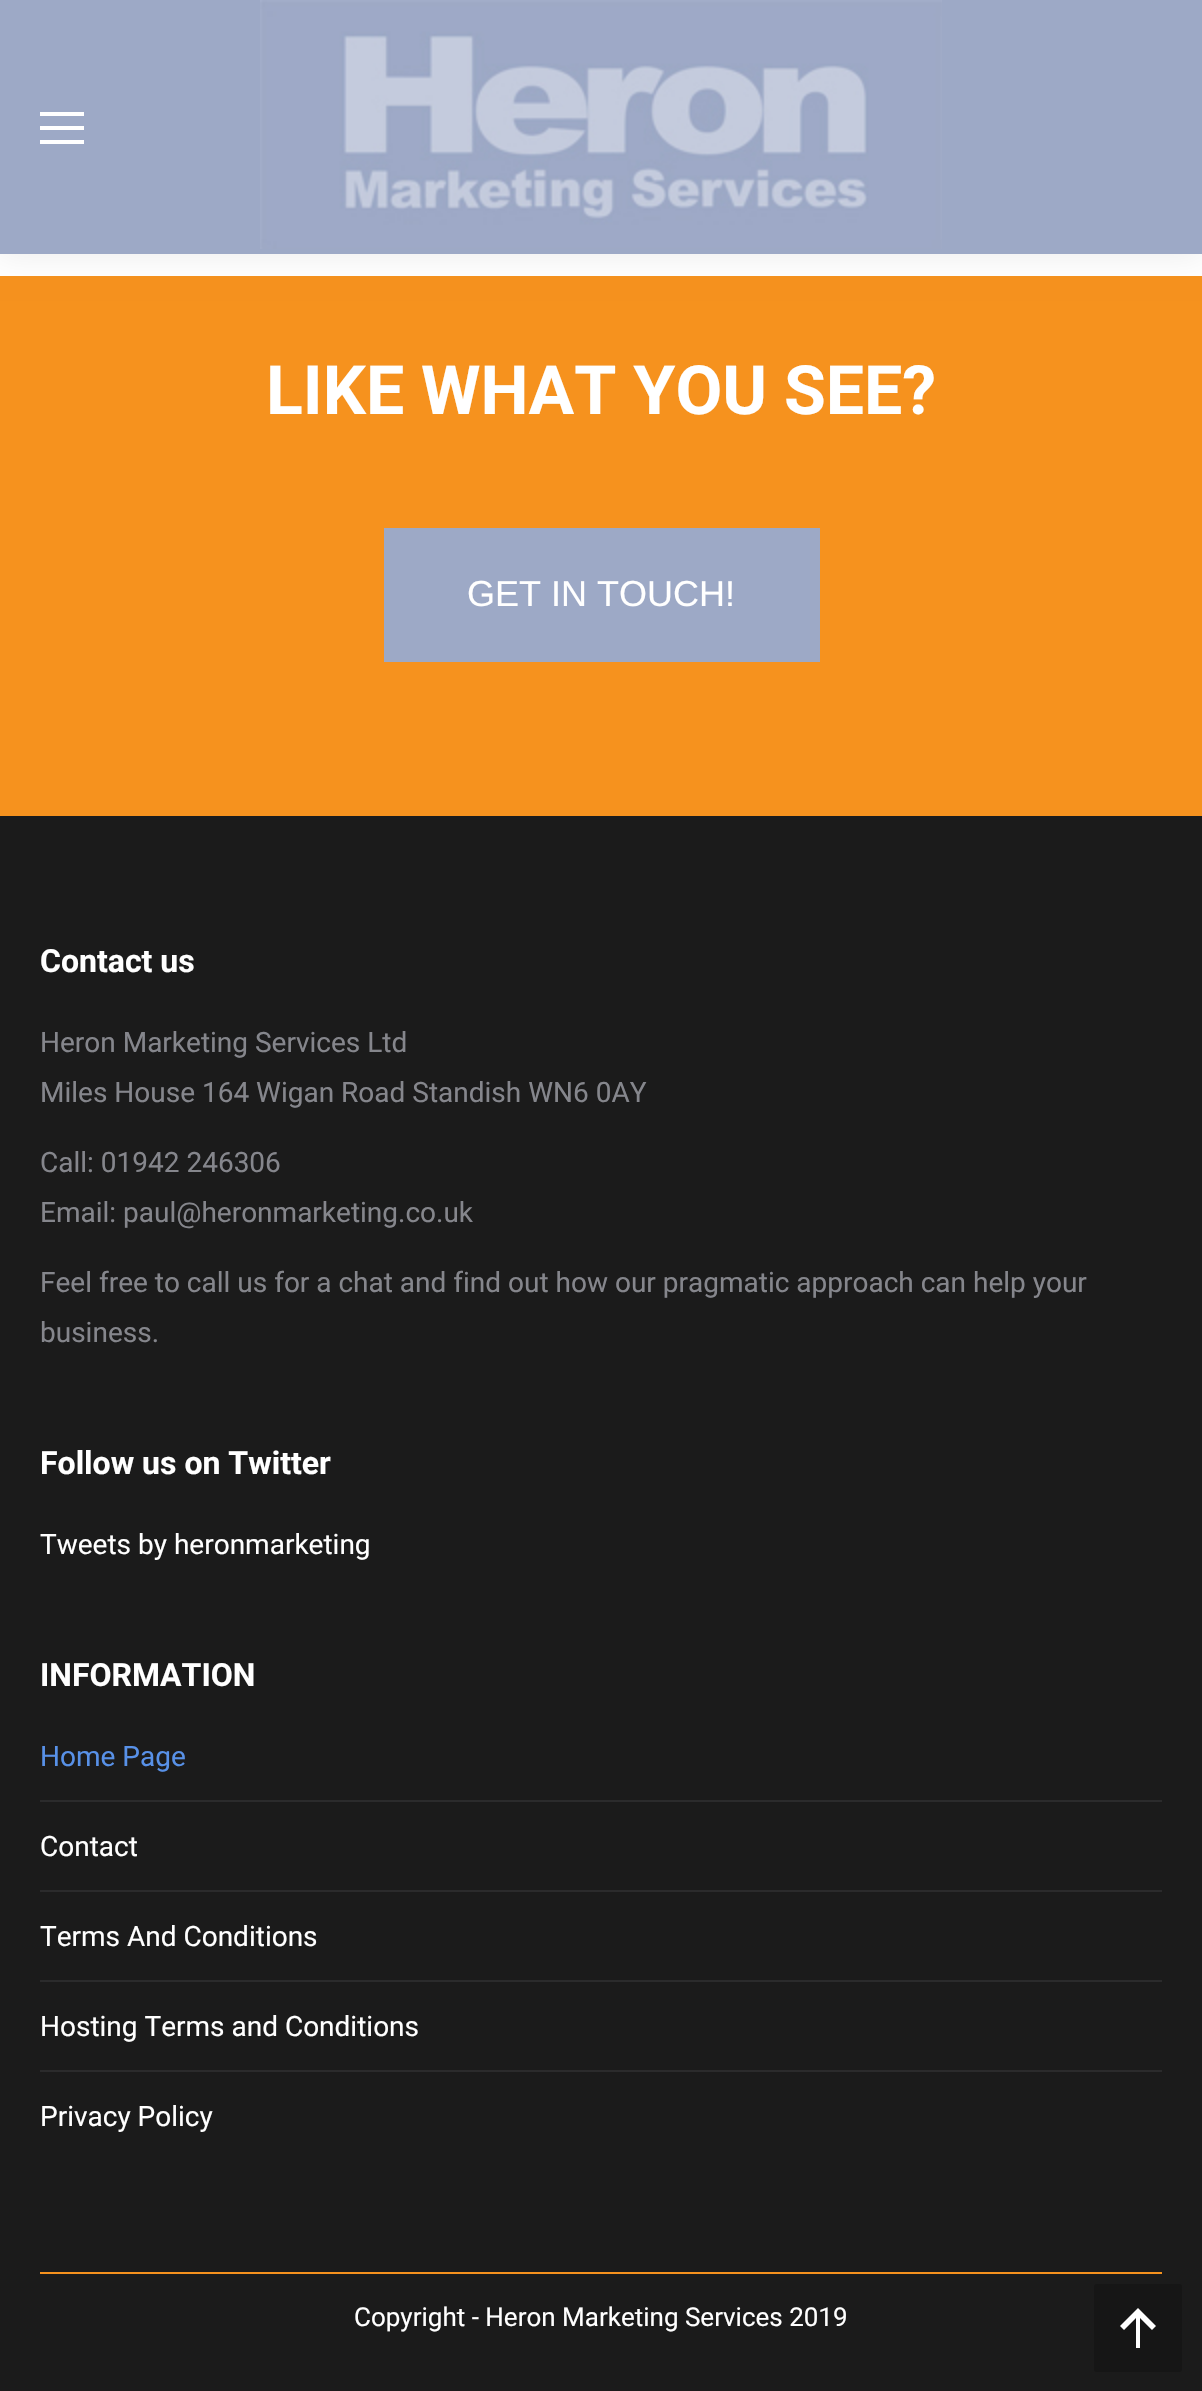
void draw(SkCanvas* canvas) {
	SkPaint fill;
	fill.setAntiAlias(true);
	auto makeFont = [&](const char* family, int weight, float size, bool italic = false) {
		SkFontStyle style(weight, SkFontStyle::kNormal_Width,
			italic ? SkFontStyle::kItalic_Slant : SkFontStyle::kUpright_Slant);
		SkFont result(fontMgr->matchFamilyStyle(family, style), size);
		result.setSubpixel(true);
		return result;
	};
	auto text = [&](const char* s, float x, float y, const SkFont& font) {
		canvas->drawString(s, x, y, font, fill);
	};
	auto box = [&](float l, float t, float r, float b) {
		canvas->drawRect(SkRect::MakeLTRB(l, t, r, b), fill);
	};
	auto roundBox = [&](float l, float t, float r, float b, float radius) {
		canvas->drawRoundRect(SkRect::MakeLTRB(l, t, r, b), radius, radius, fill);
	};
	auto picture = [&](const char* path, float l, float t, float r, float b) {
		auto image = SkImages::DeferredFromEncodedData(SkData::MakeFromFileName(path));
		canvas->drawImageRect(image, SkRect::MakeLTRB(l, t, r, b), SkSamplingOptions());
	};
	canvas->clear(0xFFFFFFFF);
	fill.setColor(0xFFF6921E);
	box(0, 276, 1202, 816);
	fill.setColor(0x12000000);
	fill.setMaskFilter(SkMaskFilter::MakeBlur(kNormal_SkBlurStyle, 15));
	canvas->drawRect(SkRect::MakeLTRB(-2, -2, 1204, 256), fill);
	fill.setMaskFilter(nullptr);
	fill.setColor(0xFF9DA9C6);
	box(0, 0, 1202, 254);
	fill.setColor(0xFFFFFFFF);
	box(40, 126, 84, 130);
	box(40, 112, 84, 116);
	box(40, 140, 84, 144);
	picture("image0.png", 260, 0, 942, 249);
	fill.setColor(0xFF9DA9C6);
	box(384, 528, 820, 662);
	fill.setColor(0xFF1B1B1B);
	box(0, 816, 1202, 2391);
	fill.setColor(0xFF2B2B2C);
	box(40, 1800, 1162, 1802);
	box(40, 1890, 1162, 1892);
	box(40, 1980, 1162, 1982);
	box(40, 2070, 1162, 2072);
	fill.setColor(0xFFF6921E);
	box(40, 2272, 1162, 2274);
	fill.setColor(0xFF161616);
	roundBox(1094, 2284, 1182, 2372, 2);
	fill.setColor(0xFFFFFFFF);
	canvas->drawPath(SkPathBuilder().moveTo(1120, 2326).lineTo(1124, 2330).lineTo(1136, 2318).lineTo(1136, 2348).lineTo(1140, 2348).lineTo(1140, 2318).lineTo(1152, 2330).lineTo(1156, 2326).lineTo(1138, 2308).close().detach(), fill);
	auto font1 = makeFont("Roboto", 700, 68);
	text("LIKE WHAT YOU SEE?", 266, 414, font1);
	auto font2 = makeFont("Liberation Sans", 400, 36);
	text("GET IN TOUCH!", 467, 606, font2);
	auto font3 = makeFont("Roboto", 700, 32);
	text("Contact us", 40, 972, font3);
	auto font4 = makeFont("Roboto", 400, 28);
	fill.setColor(0xFF85868C);
	text("Heron Marketing Services Ltd", 40, 1052, font4);
	text("Miles House 164 Wigan Road Standish WN6 0AY", 40, 1102, font4);
	text("Call: 01942 246306", 40, 1172, font4);
	text("Email: paul@heronmarketing.co.uk", 40, 1222, font4);
	text("Feel free to call us for a chat and find out how our pragmatic approach can help your", 40, 1292, font4);
	text("business.", 40, 1342, font4);
	fill.setColor(0xFFFFFFFF);
	text("Follow us on Twitter", 40, 1474, font3);
	text("Tweets by heronmarketing", 40, 1554, font4);
	text("INFORMATION", 40, 1686, font3);
	fill.setColor(0xFF5891E8);
	text("Home Page", 40, 1766, font4);
	fill.setColor(0xFFFFFFFF);
	text("Contact", 40, 1856, font4);
	text("Terms And Conditions", 40, 1946, font4);
	text("Hosting Terms and Conditions", 40, 2036, font4);
	text("Privacy Policy", 40, 2126, font4);
	auto font5 = makeFont("Roboto", 400, 26);
	text("Copyright - Heron Marketing Services 2019", 354, 2326, font5);
}
